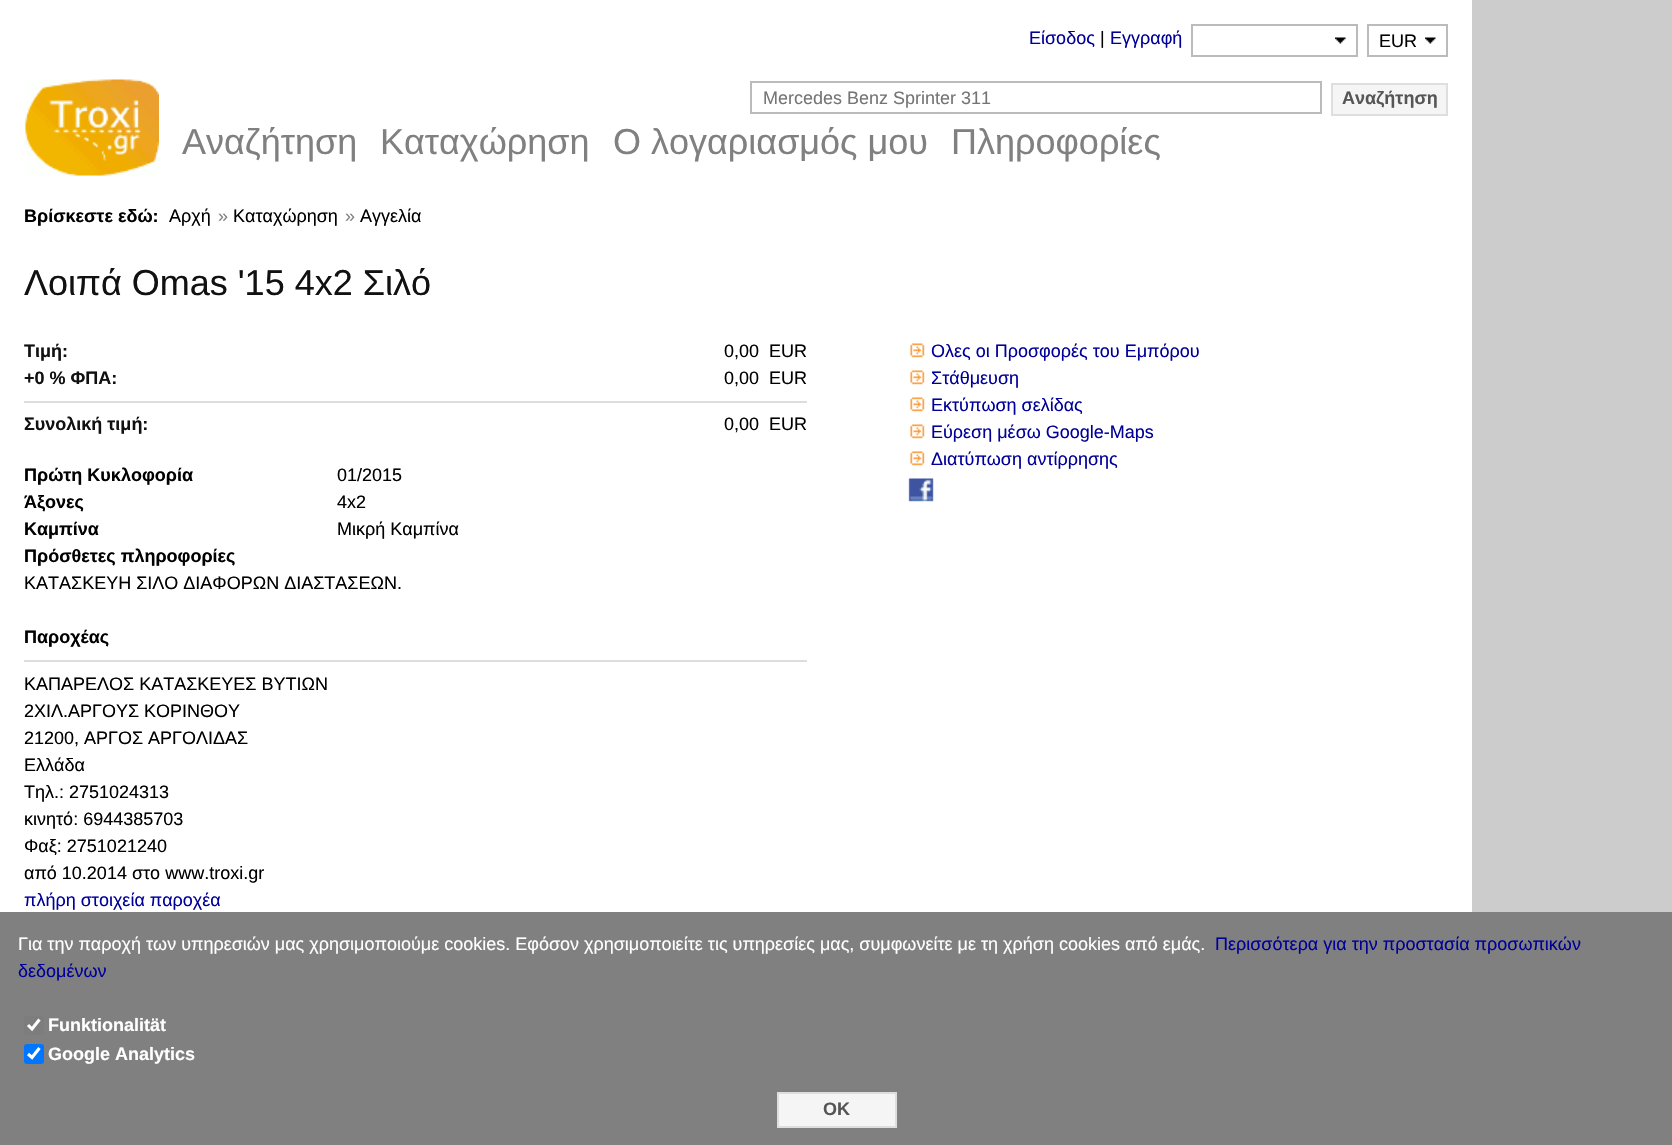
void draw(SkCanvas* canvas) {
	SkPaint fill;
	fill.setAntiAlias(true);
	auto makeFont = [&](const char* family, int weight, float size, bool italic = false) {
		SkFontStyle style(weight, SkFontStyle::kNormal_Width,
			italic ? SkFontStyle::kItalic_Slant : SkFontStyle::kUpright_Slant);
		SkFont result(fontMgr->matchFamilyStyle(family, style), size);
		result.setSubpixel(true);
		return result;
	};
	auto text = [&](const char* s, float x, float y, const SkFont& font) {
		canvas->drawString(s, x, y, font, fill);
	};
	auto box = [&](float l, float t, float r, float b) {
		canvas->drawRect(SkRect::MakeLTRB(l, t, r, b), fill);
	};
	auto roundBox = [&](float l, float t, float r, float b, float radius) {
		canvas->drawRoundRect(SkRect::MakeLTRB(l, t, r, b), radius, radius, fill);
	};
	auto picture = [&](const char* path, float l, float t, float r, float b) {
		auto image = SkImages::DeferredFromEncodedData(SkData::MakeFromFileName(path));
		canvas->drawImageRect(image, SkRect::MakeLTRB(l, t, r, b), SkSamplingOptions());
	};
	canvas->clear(0xFFCCCCCC);
	fill.setColor(0xFFFFFFFF);
	box(0, 0, 1472, 912);
	picture("image0.png", 1335, 37, 1346, 44);
	fill.setStyle(SkPaint::kStroke_Style);
	fill.setStrokeWidth(2);
	fill.setColor(0xFFBBBBBB);
	canvas->drawRect(SkRect::MakeLTRB(1192, 25, 1357, 56), fill);
	picture("image1.png", 1425, 37, 1436, 44);
	canvas->drawRect(SkRect::MakeLTRB(1368, 25, 1447, 56), fill);
	canvas->drawRect(SkRect::MakeLTRB(751, 82, 1321, 113), fill);
	fill.setStyle(SkPaint::kFill_Style);
	fill.setColor(0xFFF5F5F5);
	canvas->drawRect(SkRect::MakeLTRB(1332, 84, 1447, 115), fill);
	fill.setStyle(SkPaint::kStroke_Style);
	fill.setColor(0xFFDEDEDE);
	canvas->drawRect(SkRect::MakeLTRB(1332, 84, 1447, 115), fill);
	picture("image2.png", 25, 79, 159, 176);
	fill.setStyle(SkPaint::kFill_Style);
	fill.setColor(0xFFDDDDDD);
	box(24, 401, 807, 403);
	box(24, 660, 807, 662);
	picture("image3.png", 910, 343, 925, 358);
	picture("image3.png", 910, 370, 925, 385);
	picture("image3.png", 910, 397, 925, 412);
	picture("image3.png", 910, 424, 925, 439);
	picture("image3.png", 910, 451, 925, 466);
	picture("image4.png", 908, 478, 934, 502);
	fill.setColor(0xFF808080);
	box(0, 912, 1672, 1145);
	fill.setColor(0xFF7D7D7D);
	roundBox(24, 1016, 44, 1035, 3);
	fill.setStyle(SkPaint::kStroke_Style);
	fill.setStrokeWidth(3.1f);
	fill.setColor(0xFFFFFFFF);
	canvas->drawPath(SkPathBuilder().moveTo(28, 1025).lineTo(32, 1029).lineTo(39.5f, 1019.5f).detach(), fill);
	fill.setStyle(SkPaint::kFill_Style);
	fill.setColor(0xFF0075FF);
	roundBox(24, 1044, 44, 1064, 3);
	fill.setStyle(SkPaint::kStroke_Style);
	fill.setColor(0xFFFFFFFF);
	canvas->drawPath(SkPathBuilder().moveTo(28, 1054).lineTo(32, 1057.5f).lineTo(39.5f, 1048).detach(), fill);
	fill.setStyle(SkPaint::kFill_Style);
	fill.setColor(0xFFF5F5F5);
	canvas->drawRect(SkRect::MakeLTRB(778, 1093, 896, 1127), fill);
	fill.setStyle(SkPaint::kStroke_Style);
	fill.setStrokeWidth(2);
	fill.setColor(0xFFDEDEDE);
	canvas->drawRect(SkRect::MakeLTRB(778, 1093, 896, 1127), fill);
	auto font1 = makeFont("Liberation Sans", 400, 18);
	fill.setStyle(SkPaint::kFill_Style);
	fill.setColor(0xFF000099);
	text("Είσοδος", 1029, 44, font1);
	fill.setColor(0xFF000000);
	text("|", 1100, 44, font1);
	fill.setColor(0xFF000099);
	text("Εγγραφή", 1110, 44, font1);
	fill.setColor(0xFF000000);
	text("EUR", 1379, 47, font1);
	fill.setColor(0xFF757575);
	text("Mercedes Benz Sprinter 311", 763, 104, font1);
	auto font2 = makeFont("Liberation Sans", 700, 18);
	fill.setColor(0xFF565656);
	text("Αναζήτηση", 1342, 104, font2);
	auto font3 = makeFont("Liberation Sans", 400, 36);
	fill.setColor(0xFF808080);
	text("Αναζήτηση", 182, 154, font3);
	text("Καταχώρηση", 380, 154, font3);
	text("Ο λογαριασμός μου", 613, 154, font3);
	text("Πληροφορίες", 951, 154, font3);
	fill.setColor(0xFF000000);
	text("Βρίσκεστε εδώ:", 24, 222, font2);
	text("Αρχή", 169, 222, font1);
	fill.setColor(0xFF808080);
	text("»", 218, 222, font1);
	fill.setColor(0xFF000000);
	text("Καταχώρηση", 233, 222, font1);
	fill.setColor(0xFF808080);
	text("»", 345, 222, font1);
	fill.setColor(0xFF000000);
	text("Αγγελία", 360, 222, font1);
	fill.setColor(0xFF111111);
	text("Λοιπά Omas '15 4x2 Σιλό", 24, 295, font3);
	text("Τιμή:", 24, 357, font2);
	fill.setColor(0xFF000000);
	text("0,00  EUR", 724, 357, font1);
	fill.setColor(0xFF111111);
	text("+0 % ΦΠΑ:", 24, 384, font2);
	fill.setColor(0xFF000000);
	text("0,00  EUR", 724, 384, font1);
	fill.setColor(0xFF111111);
	text("Συνολική τιμή:", 24, 430, font2);
	fill.setColor(0xFF000000);
	text("0,00  EUR", 724, 430, font1);
	text("Πρώτη Κυκλοφορία", 24, 481, font2);
	text("01/2015", 337, 481, font1);
	text("Άξονες", 24, 508, font2);
	text("4x2", 337, 508, font1);
	text("Καμπίνα", 24, 535, font2);
	text("Μικρή Καμπίνα", 337, 535, font1);
	text("Πρόσθετες πληροφορίες", 24, 562, font2);
	text("ΚΑΤΑΣΚΕΥΗ ΣΙΛΟ ΔΙΑΦΟΡΩΝ ΔΙΑΣΤΑΣΕΩΝ.", 24, 589, font1);
	text("Παροχέας", 24, 643, font2);
	text("ΚΑΠΑΡΕΛΟΣ ΚΑΤΑΣΚΕΥΕΣ ΒΥΤΙΩΝ", 24, 690, font1);
	text("2ΧΙΛ.ΑΡΓΟΥΣ ΚΟΡΙΝΘΟΥ", 24, 717, font1);
	text("21200, ΑΡΓΟΣ ΑΡΓΟΛΙΔΑΣ", 24, 744, font1);
	text("Ελλάδα", 24, 771, font1);
	text("Τηλ.: 2751024313", 24, 798, font1);
	text("κινητό: 6944385703", 24, 825, font1);
	text("Φαξ: 2751021240", 24, 852, font1);
	text("από 10.2014 στο www.troxi.gr", 24, 879, font1);
	fill.setColor(0xFF000099);
	text("πλήρη στοιχεία παροχέα", 24, 906, font1);
	text("Ολες οι Προσφορές του Εμπόρου", 931, 357, font1);
	text("Στάθμευση", 931, 384, font1);
	text("Εκτύπωση σελίδας", 931, 411, font1);
	text("Εύρεση μέσω Google-Maps", 931, 438, font1);
	text("Διατύπωση αντίρρησης", 931, 465, font1);
	fill.setColor(0xFFFFFFFF);
	text("Για την παροχή των υπηρεσιών μας χρησιμοποιούμε cookies. Εφόσον χρησιμοποιείτε τις υπηρεσίες μας, συμφωνείτε με τη χρήση cookies από εμάς.", 18, 950, font1);
	fill.setColor(0xFF000099);
	text("Περισσότερα για την προστασία προσωπικών", 1215, 950, font1);
	text("δεδομένων", 18, 977, font1);
	fill.setColor(0xFFFFFFFF);
	text("Funktionalität", 48, 1031, font2);
	text("Google Analytics", 48, 1060, font2);
	fill.setColor(0xFF565656);
	text("OK", 823, 1115, font2);
}
